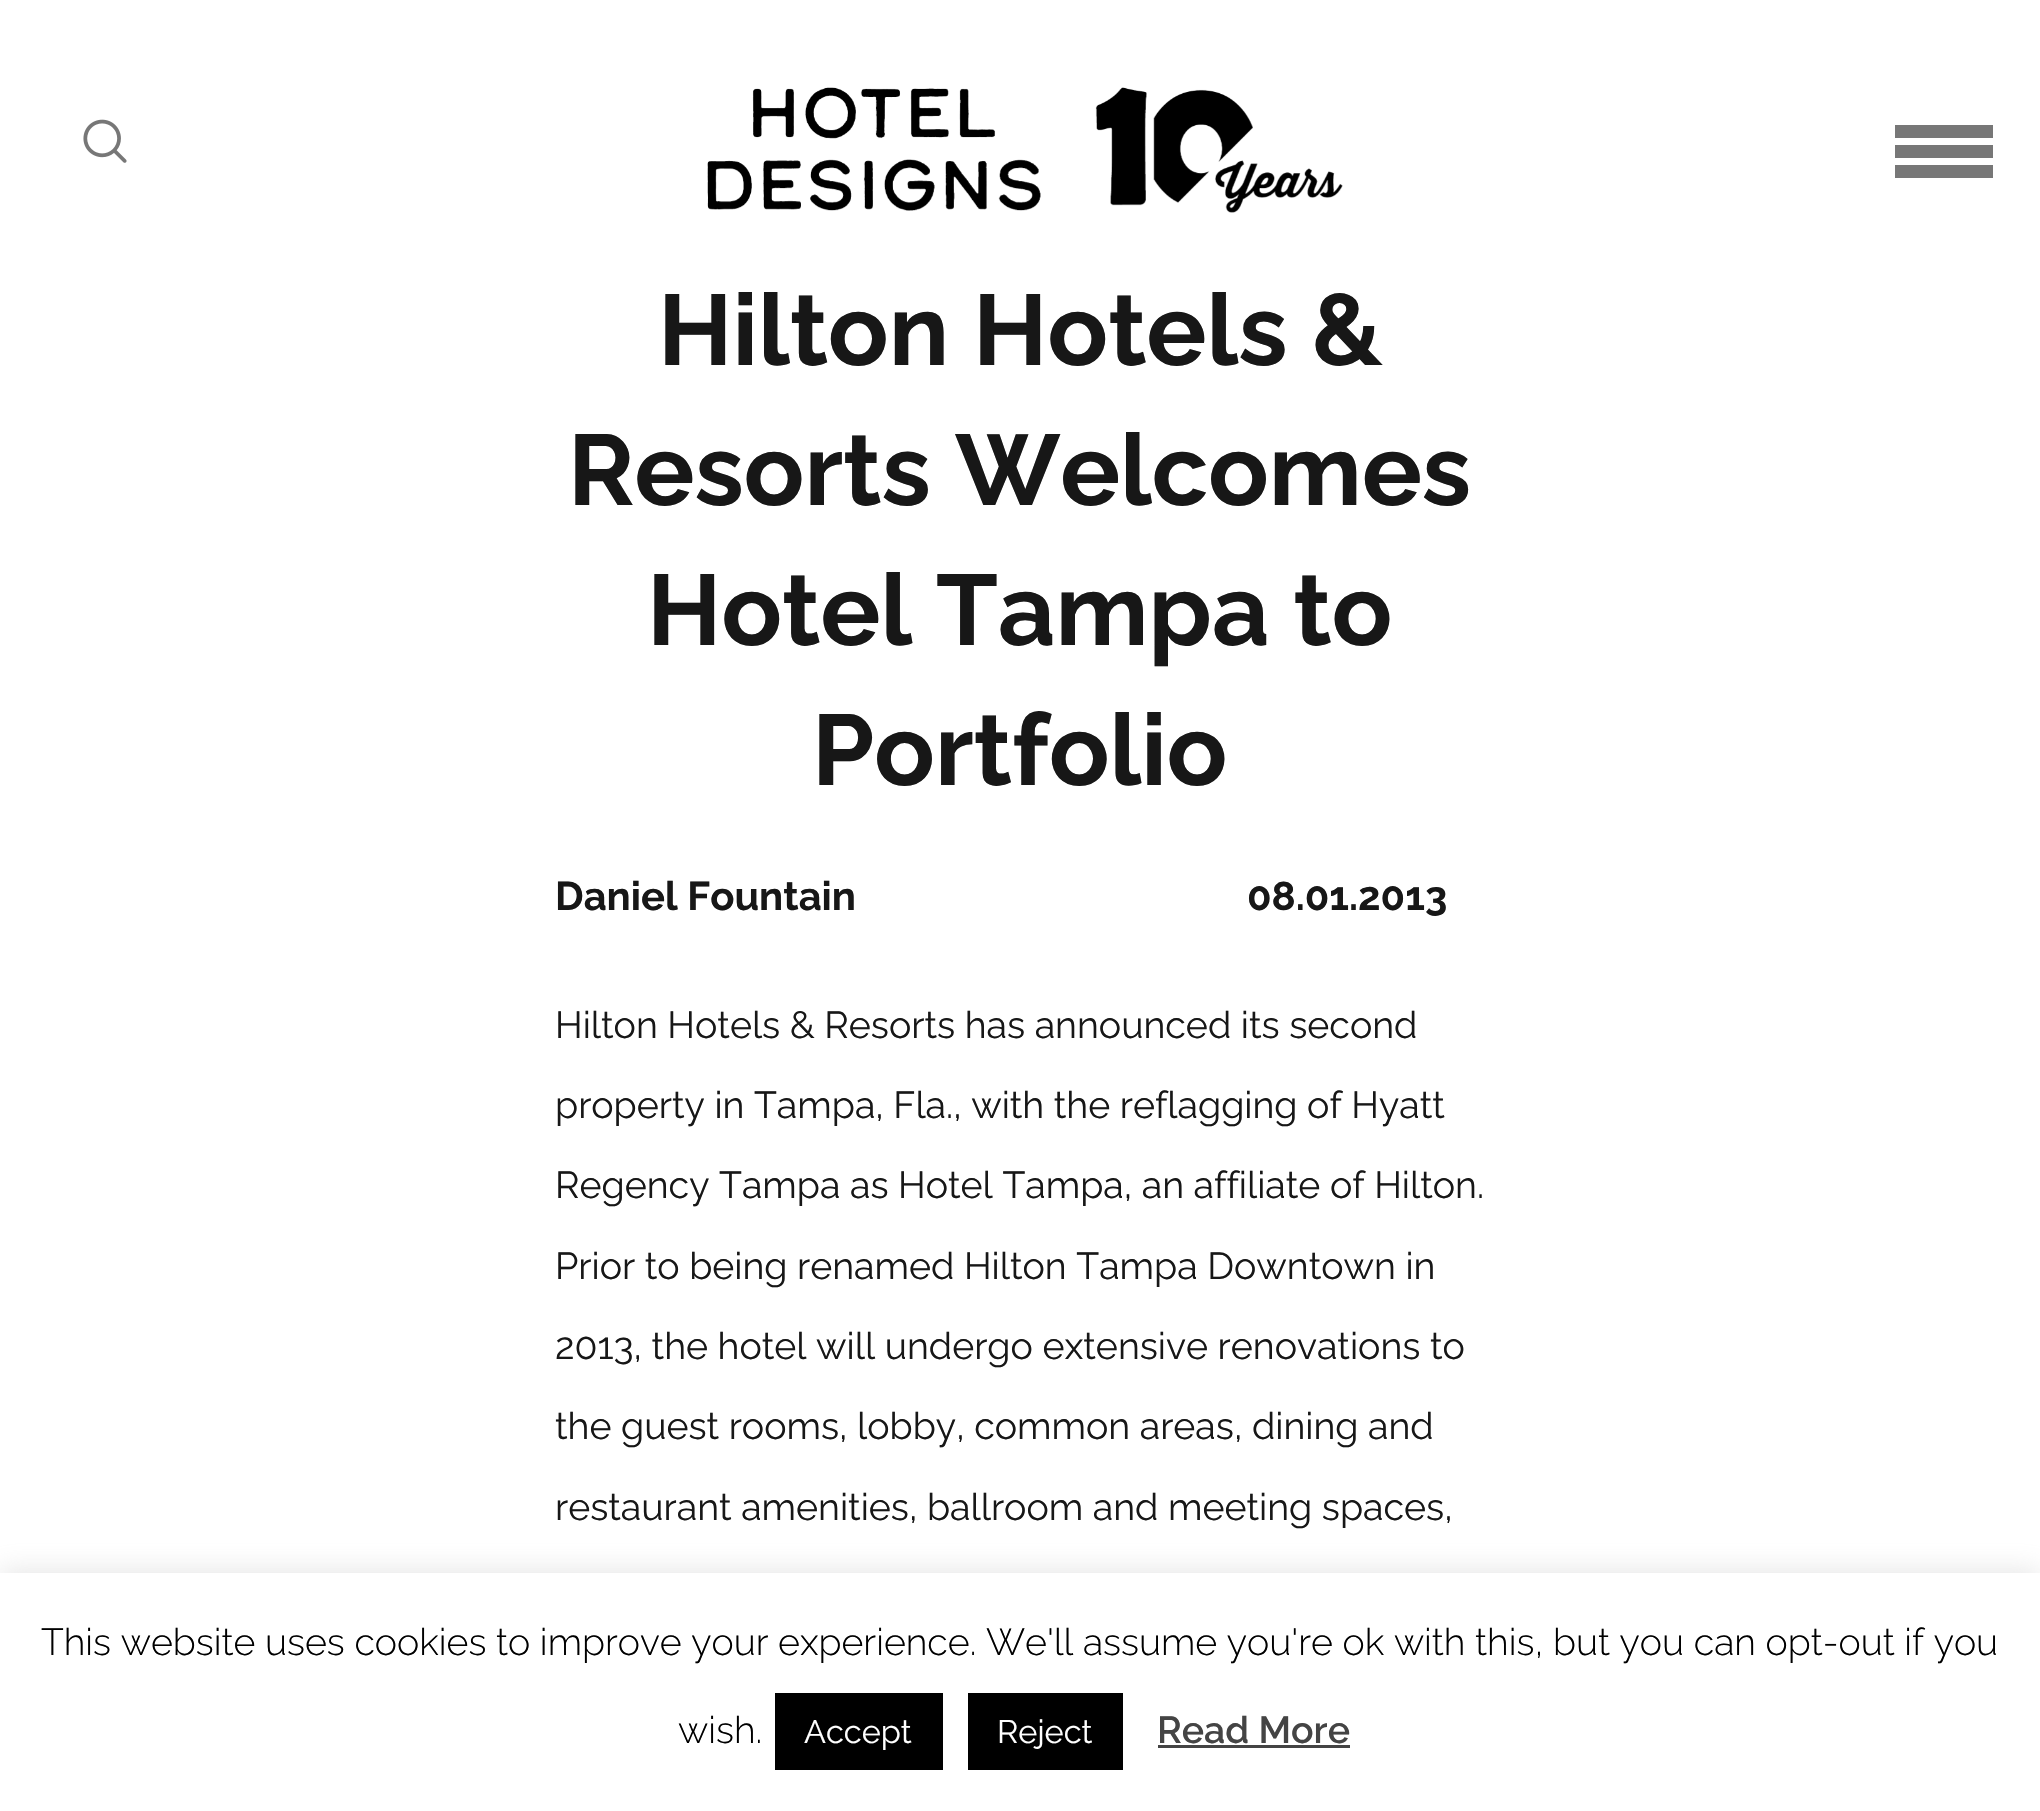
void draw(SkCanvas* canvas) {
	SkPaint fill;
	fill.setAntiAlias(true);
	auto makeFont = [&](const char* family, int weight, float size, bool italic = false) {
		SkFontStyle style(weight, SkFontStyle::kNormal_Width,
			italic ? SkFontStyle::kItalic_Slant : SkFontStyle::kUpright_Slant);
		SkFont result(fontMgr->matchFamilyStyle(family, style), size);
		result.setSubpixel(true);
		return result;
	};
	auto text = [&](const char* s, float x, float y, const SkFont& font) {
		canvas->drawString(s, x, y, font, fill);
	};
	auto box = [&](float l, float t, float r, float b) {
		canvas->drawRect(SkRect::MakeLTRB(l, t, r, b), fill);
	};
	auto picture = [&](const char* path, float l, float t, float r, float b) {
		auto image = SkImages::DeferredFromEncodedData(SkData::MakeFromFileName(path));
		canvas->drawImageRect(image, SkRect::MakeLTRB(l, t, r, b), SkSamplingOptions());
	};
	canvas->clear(0xFFFFFFFF);
	picture("image0.png", 83, 119, 127, 163);
	picture("image1.png", 707, 87, 1343, 213);
	fill.setColor(0xFF777777);
	box(1895, 125, 1993, 138);
	box(1895, 145, 1993, 158);
	box(1895, 165, 1993, 178);
	fill.setColor(0x4DACABAB);
	fill.setMaskFilter(SkMaskFilter::MakeBlur(kNormal_SkBlurStyle, 12.5f));
	canvas->drawRect(SkRect::MakeLTRB(0, 1570, 2040, 1810), fill);
	fill.setMaskFilter(nullptr);
	fill.setColor(0xFFFFFFFF);
	box(0, 1573, 2040, 1811);
	fill.setColor(0xFF000000);
	box(775, 1693, 943, 1770);
	box(968, 1693, 1123, 1770);
	fill.setColor(0xFF444444);
	box(1158, 1745, 1350, 1748);
	auto font1 = makeFont("Raleway", 700, 100);
	fill.setColor(0xFF171717);
	text("Hilton Hotels &", 658, 365, font1);
	text("Resorts Welcomes", 568, 505, font1);
	text("Hotel Tampa to", 647, 645, font1);
	text("Portfolio", 812, 785, font1);
	auto font2 = makeFont("Raleway", 700, 40);
	text("Daniel Fountain", 555, 910, font2);
	text("08.01.2013", 1247, 910, font2);
	auto font3 = makeFont("Raleway", 400, 37.5f);
	text("Hilton Hotels & Resorts has announced its second", 555, 1038, font3);
	text("property in Tampa, Fla., with the reflagging of Hyatt", 555, 1118, font3);
	text("Regency Tampa as Hotel Tampa, an affiliate of Hilton.", 555, 1198, font3);
	text("Prior to being renamed Hilton Tampa Downtown in", 555, 1279, font3);
	text("2013, the hotel will undergo extensive renovations to", 555, 1359, font3);
	text("the guest rooms, lobby, common areas, dining and", 555, 1439, font3);
	text("restaurant amenities, ballroom and meeting spaces,", 555, 1520, font3);
	auto font4 = makeFont("Raleway", 300, 37.5f);
	fill.setColor(0xFF000000);
	text("This website uses cookies to improve your experience. We'll assume you're ok with this, but you can opt-out if you", 41, 1655, font4);
	text("wish.", 678, 1743, font4);
	auto font5 = makeFont("Raleway", 400, 32.5f);
	fill.setColor(0xFFFFFFFF);
	text("Accept", 804, 1743, font5);
	text("Reject", 997, 1743, font5);
	auto font6 = makeFont("Raleway", 600, 37.5f);
	fill.setColor(0xFF444444);
	text("Read More", 1157, 1743, font6);
}
